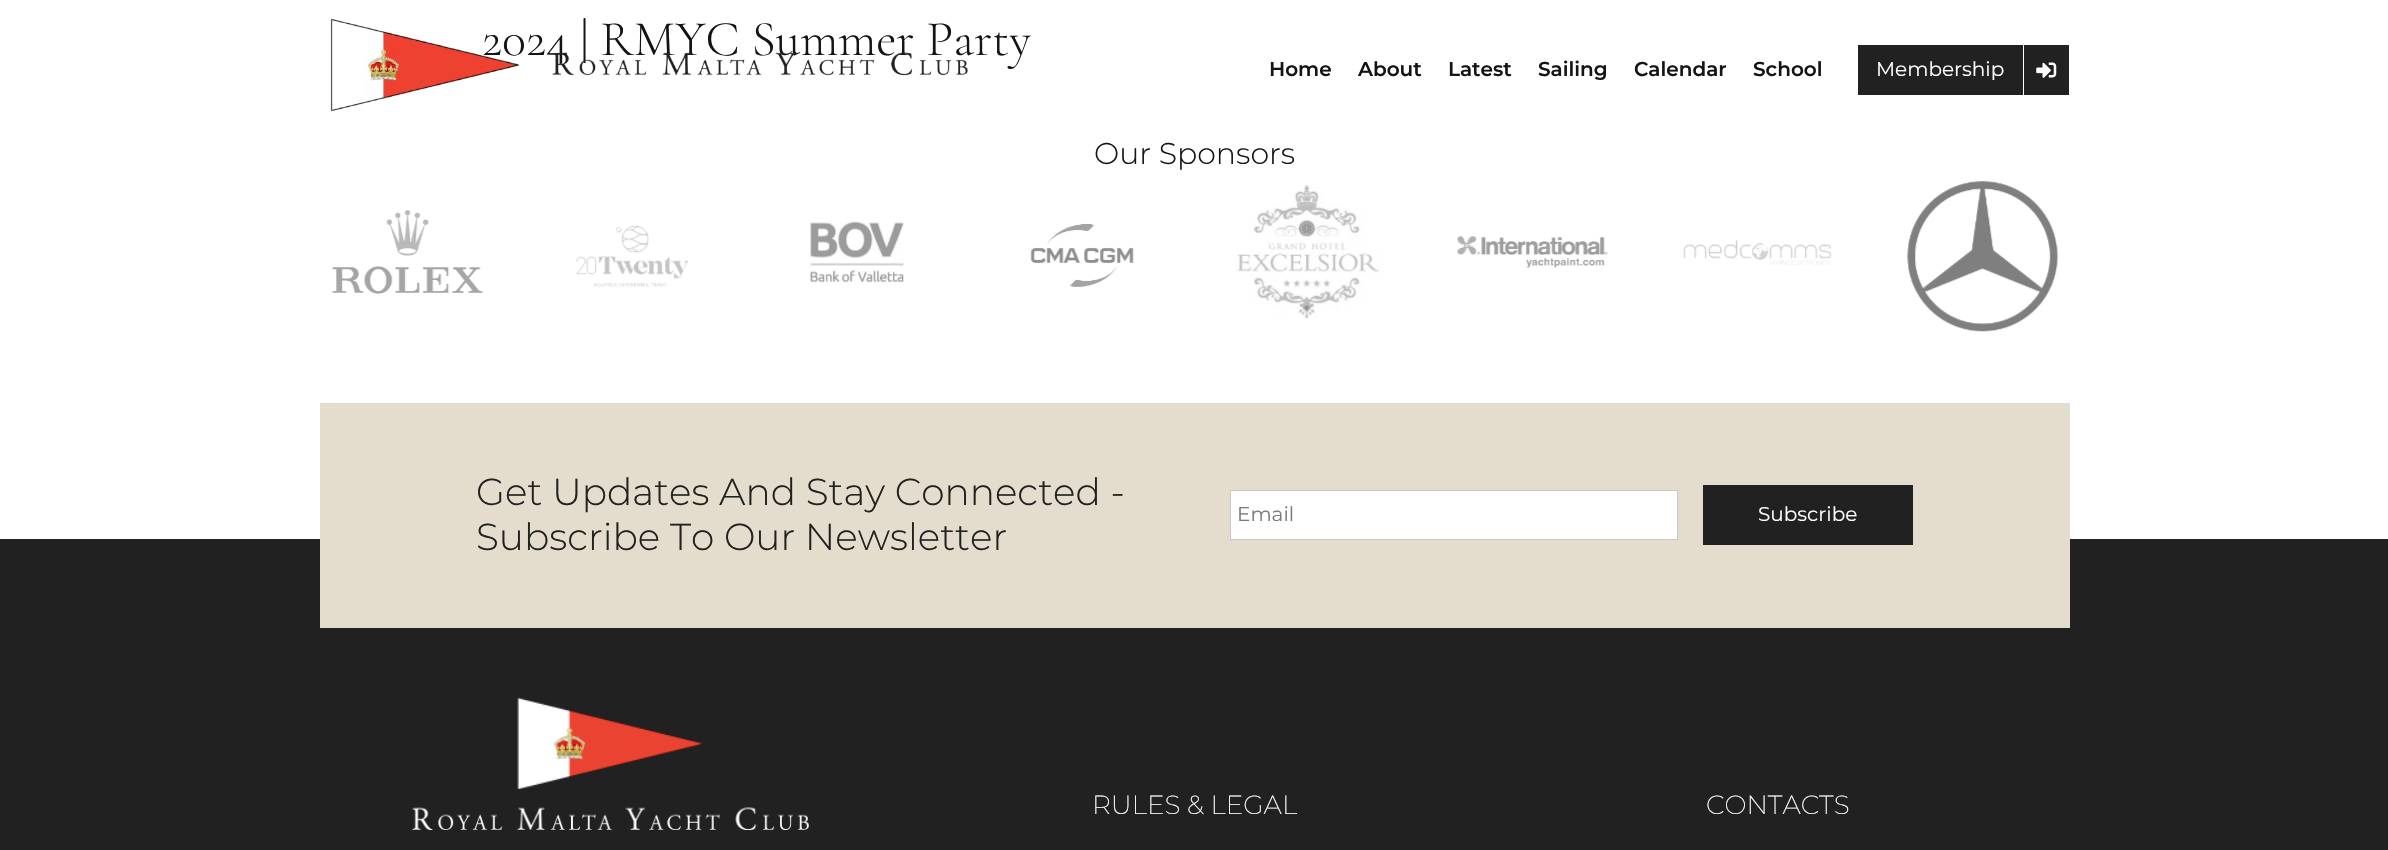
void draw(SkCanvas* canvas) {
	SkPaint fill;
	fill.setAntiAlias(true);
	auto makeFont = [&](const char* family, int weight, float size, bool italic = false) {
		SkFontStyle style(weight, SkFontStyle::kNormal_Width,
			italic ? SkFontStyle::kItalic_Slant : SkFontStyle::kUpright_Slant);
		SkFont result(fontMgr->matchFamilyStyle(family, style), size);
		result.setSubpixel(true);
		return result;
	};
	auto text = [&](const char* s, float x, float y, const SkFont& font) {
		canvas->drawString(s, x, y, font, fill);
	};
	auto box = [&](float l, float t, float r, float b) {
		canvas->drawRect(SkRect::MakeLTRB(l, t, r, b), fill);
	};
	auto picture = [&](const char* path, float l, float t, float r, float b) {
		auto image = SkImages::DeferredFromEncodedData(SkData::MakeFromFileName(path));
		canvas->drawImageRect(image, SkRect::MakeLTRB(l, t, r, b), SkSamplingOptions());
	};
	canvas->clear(0xFFFFFFFF);
	fill.setColor(0xFF212121);
	box(1858, 45, 2023, 95);
	box(2024, 45, 2069, 95);
	picture("image1.png", 2036, 62, 2057, 78);
	picture("image2.png", 332, 210, 483, 294);
	picture("image3.png", 576, 225, 689, 288);
	picture("image4.png", 810, 221, 904, 283);
	picture("image5.png", 1030, 223, 1134, 287);
	picture("image6.png", 1236, 184, 1380, 319);
	picture("image7.png", 1457, 236, 1608, 268);
	picture("image8.png", 1683, 240, 1832, 265);
	picture("image9.png", 1907, 181, 2059, 332);
	box(0, 539, 2388, 850);
	fill.setColor(0xFFE4DDCD);
	box(320, 403, 2070, 628);
	fill.setColor(0xFFFFFFFF);
	canvas->drawRect(SkRect::MakeLTRB(1230.5f, 490.5f, 1677.5f, 539.5f), fill);
	fill.setStyle(SkPaint::kStroke_Style);
	fill.setStrokeWidth(1);
	fill.setColor(0xFFCBC8CC);
	canvas->drawRect(SkRect::MakeLTRB(1230.5f, 490.5f, 1677.5f, 539.5f), fill);
	fill.setStyle(SkPaint::kFill_Style);
	fill.setColor(0xFF212121);
	box(1703, 485, 1913, 545);
	picture("image10.png", 517, 697, 704, 790);
	picture("image11.png", 412, 807, 809, 830);
	auto font1 = makeFont("Cormorant Garamond", 300, 50);
	fill.setColor(0xFF141414);
	text("2024 | RMYC Summer Party", 482, 55, font1);
	picture("image0.png", 330, 18, 968, 112);
	auto font2 = makeFont("Montserrat", 600, 20);
	text("Home", 1269, 76, font2);
	text("About", 1358, 76, font2);
	text("Latest", 1448, 76, font2);
	text("Sailing", 1538, 76, font2);
	text("Calendar", 1634, 76, font2);
	text("School", 1753, 76, font2);
	auto font3 = makeFont("Montserrat", 400, 20);
	fill.setColor(0xFFFFFFFF);
	text("Membership", 1876, 76, font3);
	auto font4 = makeFont("Montserrat", 300, 30);
	fill.setColor(0xFF141414);
	text("Our Sponsors", 1094, 164, font4);
	auto font5 = makeFont("Montserrat", 300, 37.5f);
	fill.setColor(0xFF212121);
	text("Get Updates And Stay Connected -", 476, 505, font5);
	text("Subscribe To Our Newsletter", 476, 550, font5);
	fill.setColor(0xFF7A7A7A);
	text("Email", 1237, 521, font3);
	fill.setColor(0xFFFFFFFF);
	text("Subscribe", 1758, 521, font3);
	auto font6 = makeFont("Montserrat", 200, 26.25f);
	text("RULES & LEGAL", 1092, 814, font6);
	text("CONTACTS", 1706, 814, font6);
}
